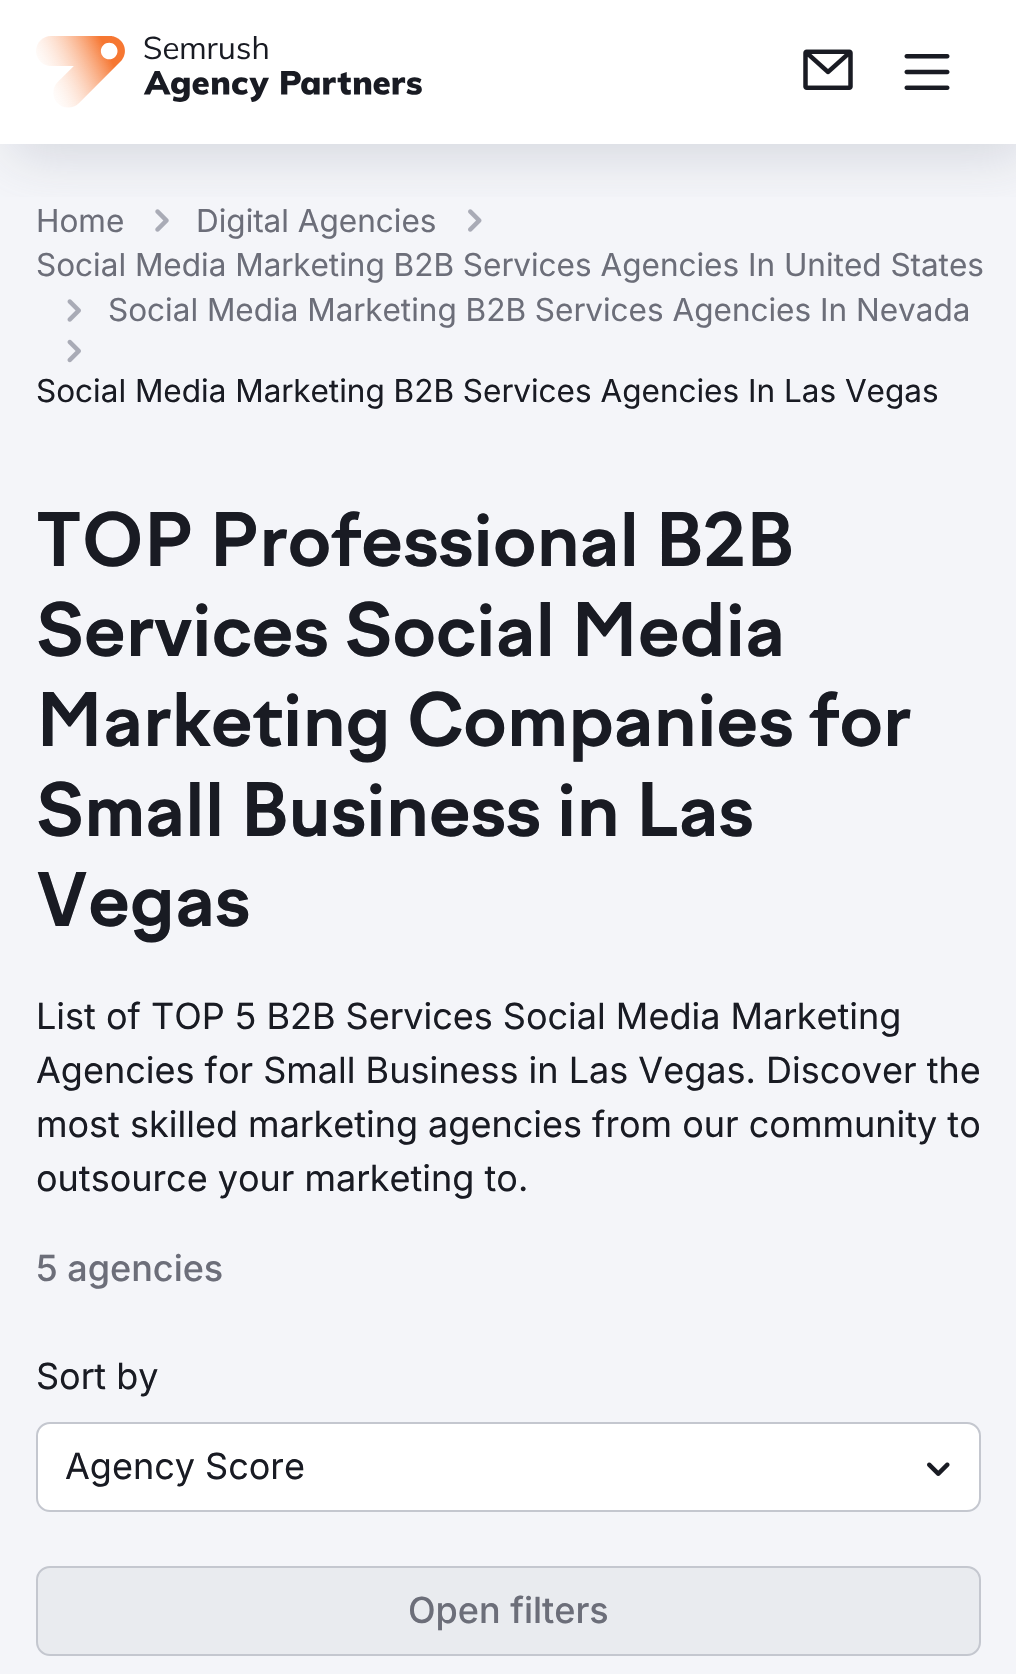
void draw(SkCanvas* canvas) {
	SkPaint fill;
	fill.setAntiAlias(true);
	auto makeFont = [&](const char* family, int weight, float size, bool italic = false) {
		SkFontStyle style(weight, SkFontStyle::kNormal_Width,
			italic ? SkFontStyle::kItalic_Slant : SkFontStyle::kUpright_Slant);
		SkFont result(fontMgr->matchFamilyStyle(family, style), size);
		result.setSubpixel(true);
		return result;
	};
	auto text = [&](const char* s, float x, float y, const SkFont& font) {
		canvas->drawString(s, x, y, font, fill);
	};
	auto box = [&](float l, float t, float r, float b) {
		canvas->drawRect(SkRect::MakeLTRB(l, t, r, b), fill);
	};
	auto picture = [&](const char* path, float l, float t, float r, float b) {
		auto image = SkImages::DeferredFromEncodedData(SkData::MakeFromFileName(path));
		canvas->drawImageRect(image, SkRect::MakeLTRB(l, t, r, b), SkSamplingOptions());
	};
	canvas->clear(0xFFFFFFFF);
	fill.setColor(0xFFF4F5F9);
	box(0, 144, 1016, 1674);
	picture("image3.png", 155, 209, 169, 232);
	picture("image4.png", 468, 209, 482, 232);
	canvas->save();
	canvas->clipRect(SkRect::MakeLTRB(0, 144, 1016, 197));
	fill.setColor(0x4D898D9A);
	fill.setMaskFilter(SkMaskFilter::MakeBlur(kNormal_SkBlurStyle, 28));
	canvas->drawRect(SkRect::MakeLTRB(11, 11, 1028, 155), fill);
	fill.setMaskFilter(nullptr);
	canvas->restore();
	picture("image0.png", 36, 36, 422, 108);
	picture("image1.png", 803, 49, 853, 90);
	picture("image2.png", 904, 54, 950, 90);
	picture("image5.png", 67, 299, 81, 322);
	picture("image6.png", 67, 339, 81, 363);
	fill.setColor(0xFFFFFFFF);
	canvas->drawRoundRect(SkRect::MakeLTRB(37, 1423, 980, 1511), 13, 13, fill);
	fill.setStyle(SkPaint::kStroke_Style);
	fill.setStrokeWidth(2);
	fill.setColor(0xFFC4C7CF);
	canvas->drawRoundRect(SkRect::MakeLTRB(37, 1423, 980, 1511), 13, 13, fill);
	picture("image7.png", 927, 1462, 950, 1476);
	fill.setStyle(SkPaint::kFill_Style);
	fill.setColor(0xFFE9EBEF);
	canvas->drawRoundRect(SkRect::MakeLTRB(37, 1567, 980, 1655), 13, 13, fill);
	fill.setStyle(SkPaint::kStroke_Style);
	fill.setColor(0xFFC4C7CF);
	canvas->drawRoundRect(SkRect::MakeLTRB(37, 1567, 980, 1655), 13, 13, fill);
	auto font1 = makeFont("Inter", 400, 31.5f);
	fill.setStyle(SkPaint::kFill_Style);
	fill.setColor(0xFF6C6E79);
	text("Home", 36, 232, font1);
	text("Digital Agencies", 196, 232, font1);
	text("Social Media Marketing B2B Services Agencies In United States", 36, 276, font1);
	text("Social Media Marketing B2B Services Agencies In Nevada", 108, 321, font1);
	fill.setColor(0xFF191B23);
	text("Social Media Marketing B2B Services Agencies In Las Vegas", 36, 402, font1);
	auto font2 = makeFont("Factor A", 700, 72);
	text("TOP Professional B2B", 36, 566, font2);
	text("Services Social Media", 36, 656, font2);
	text("Marketing Companies for", 36, 746, font2);
	text("Small Business in Las", 36, 836, font2);
	text("Vegas", 36, 926, font2);
	auto font3 = makeFont("Inter", 400, 36);
	text("List of TOP 5 B2B Services Social Media Marketing", 36, 1029, font3);
	text("Agencies for Small Business in Las Vegas. Discover the", 36, 1083, font3);
	text("most skilled marketing agencies from our community to", 36, 1137, font3);
	text("outsource your marketing to.", 36, 1191, font3);
	auto font4 = makeFont("Inter", 500, 36);
	fill.setColor(0xFF6C6E79);
	text("5 agencies", 36, 1281, font4);
	fill.setColor(0xFF191B23);
	text("Sort by", 36, 1389, font3);
	text("Agency Score", 65, 1479, font3);
	fill.setColor(0xFF6C6E79);
	text("Open filters", 408, 1623, font4);
}
